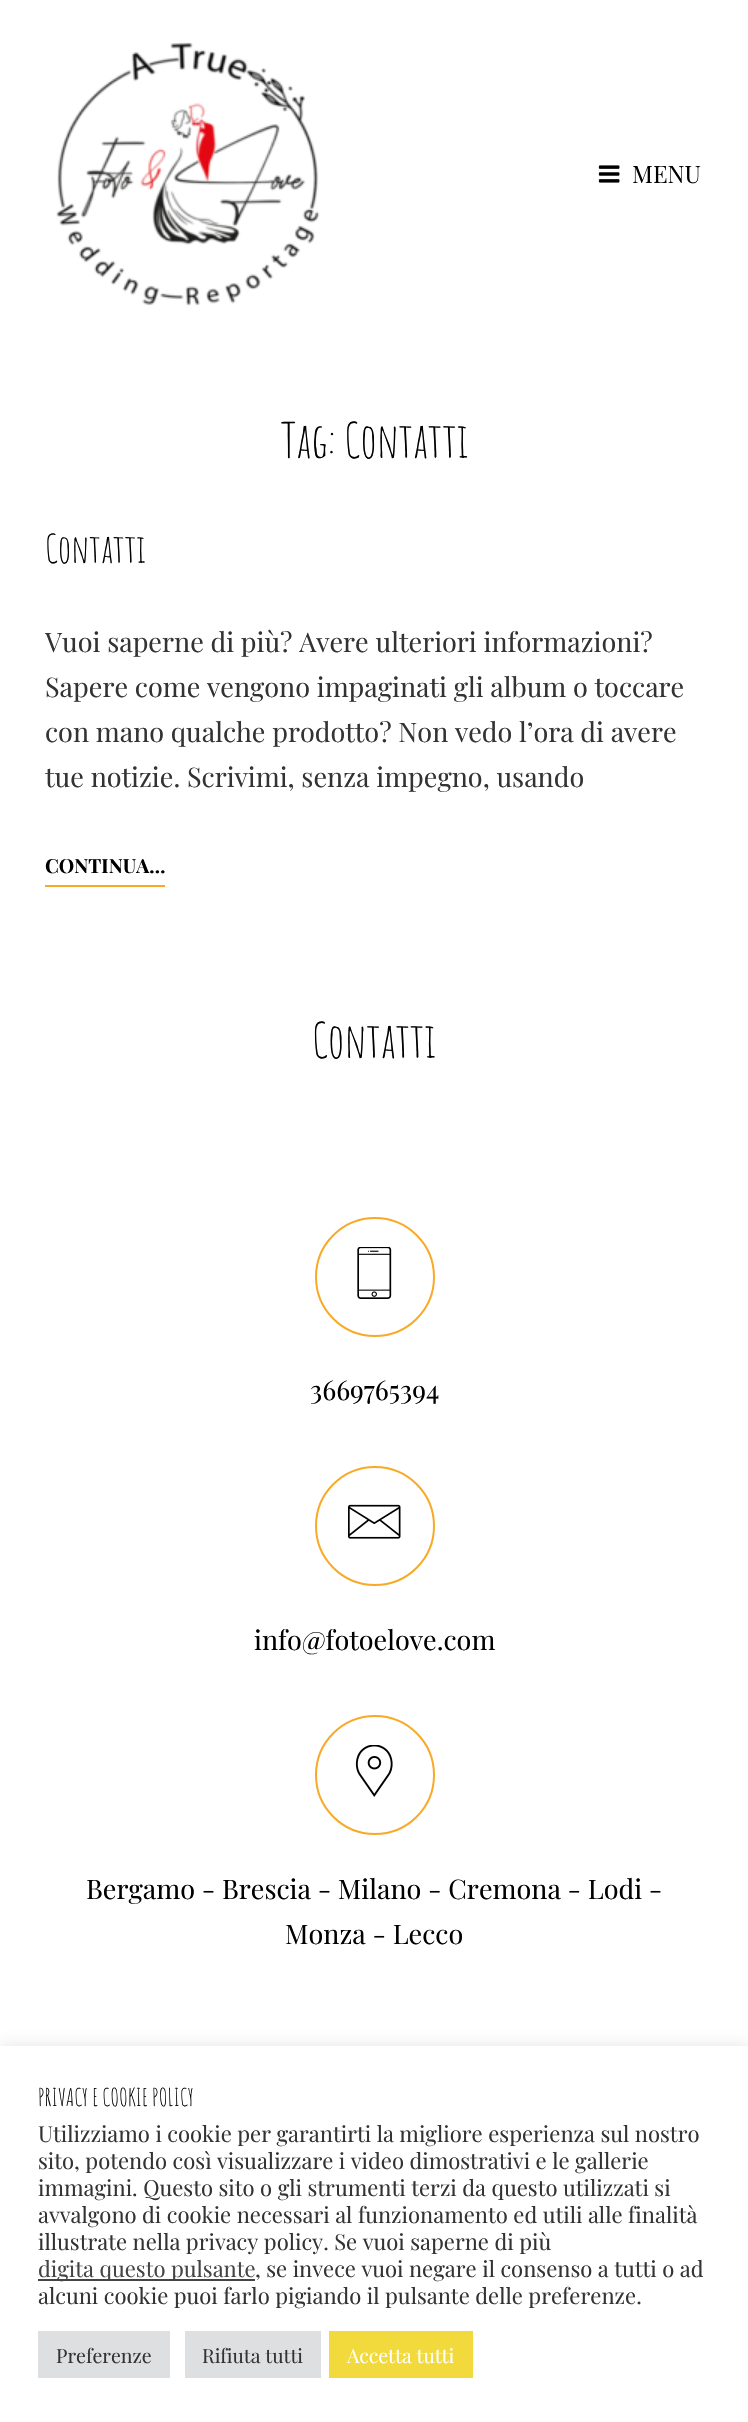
void draw(SkCanvas* canvas) {
	SkPaint fill;
	fill.setAntiAlias(true);
	auto makeFont = [&](const char* family, int weight, float size, bool italic = false) {
		SkFontStyle style(weight, SkFontStyle::kNormal_Width,
			italic ? SkFontStyle::kItalic_Slant : SkFontStyle::kUpright_Slant);
		SkFont result(fontMgr->matchFamilyStyle(family, style), size);
		result.setSubpixel(true);
		return result;
	};
	auto text = [&](const char* s, float x, float y, const SkFont& font) {
		canvas->drawString(s, x, y, font, fill);
	};
	auto box = [&](float l, float t, float r, float b) {
		canvas->drawRect(SkRect::MakeLTRB(l, t, r, b), fill);
	};
	auto picture = [&](const char* path, float l, float t, float r, float b) {
		auto image = SkImages::DeferredFromEncodedData(SkData::MakeFromFileName(path));
		canvas->drawImageRect(image, SkRect::MakeLTRB(l, t, r, b), SkSamplingOptions());
	};
	canvas->clear(0xFFFFFFFF);
	picture("image0.png", 56, 42, 320, 306);
	picture("image1.png", 598, 165, 620, 183);
	fill.setColor(0xFFF9A926);
	box(45, 885, 165, 887);
	fill.setStyle(SkPaint::kStroke_Style);
	fill.setStrokeWidth(2);
	canvas->drawCircle(375, 1277, 59, fill);
	picture("image2.png", 357, 1247, 392, 1299);
	canvas->drawCircle(375, 1526, 59, fill);
	picture("image3.png", 348, 1504, 401, 1539);
	canvas->drawCircle(375, 1775, 59, fill);
	picture("image4.png", 355, 1745, 393, 1797);
	fill.setStyle(SkPaint::kFill_Style);
	fill.setColor(0x4DACABAB);
	fill.setMaskFilter(SkMaskFilter::MakeBlur(kNormal_SkBlurStyle, 7.5f));
	canvas->drawRect(SkRect::MakeLTRB(0, 2045, 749, 2421), fill);
	fill.setMaskFilter(nullptr);
	fill.setColor(0xFFFFFFFF);
	box(0, 2046, 748, 2422);
	fill.setColor(0xFF444444);
	box(38, 2279, 255, 2281);
	fill.setColor(0xFFDEDFE0);
	box(38, 2331, 170, 2378);
	box(185, 2331, 321, 2378);
	fill.setColor(0xFFF2DA3C);
	box(329, 2331, 473, 2378);
	auto font1 = makeFont("Playfair Display", 400, 24);
	fill.setColor(0xFF000000);
	text("MENU", 632, 183, font1);
	auto font2 = makeFont("Amatic SC", 400, 48);
	text("Tag: Contatti", 281, 458, font2);
	auto font3 = makeFont("Amatic SC", 400, 39);
	text("Contatti", 45, 563, font3);
	auto font4 = makeFont("Playfair Display", 400, 27);
	fill.setColor(0xFF333333);
	text("Vuoi saperne di più? Avere ulteriori informazioni?", 45, 652, font4);
	text("Sapere come vengono impaginati gli album o toccare", 45, 697, font4);
	text("con mano qualche prodotto? Non vedo l’ora di avere", 45, 742, font4);
	text("tue notizie. Scrivimi, senza impegno, usando", 45, 787, font4);
	auto font5 = makeFont("Playfair Display", 700, 19.5f);
	fill.setColor(0xFF000000);
	text("CONTINUA…", 45, 873, font5);
	text("Contatti", 312, 1058, font2);
	text("3669765394", 310, 1400, font4);
	text("info@fotoelove.com", 254, 1650, font4);
	text("Bergamo - Brescia - Milano - Cremona - Lodi -", 86, 1899, font4);
	text("Monza - Lecco", 285, 1944, font4);
	auto font6 = makeFont("Amatic SC", 400, 24);
	text("PRIVACY E COOKIE POLICY", 38, 2106, font6);
	auto font7 = makeFont("Playfair Display", 400, 22);
	fill.setColor(0xFF333333);
	text("Utilizziamo i cookie per garantirti la migliore esperienza sul nostro", 38, 2142, font7);
	text("sito, potendo così visualizzare i video dimostrativi e le gallerie", 38, 2169, font7);
	text("immagini. Questo sito o gli strumenti terzi da questo utilizzati si", 38, 2196, font7);
	text("avvalgono di cookie necessari al funzionamento ed utili alle finalità", 38, 2223, font7);
	text("illustrate nella privacy policy. Se vuoi saperne di più", 38, 2250, font7);
	fill.setColor(0xFF444444);
	text("digita questo pulsante", 38, 2277, font7);
	fill.setColor(0xFF333333);
	text(", se invece vuoi negare il consenso a tutti o ad", 255, 2277, font7);
	text("alcuni cookie puoi farlo pigiando il pulsante delle preferenze.", 38, 2304, font7);
	auto font8 = makeFont("Playfair Display", 400, 19.5f);
	text("Preferenze", 56, 2363, font8);
	text("Rifiuta tutti", 202, 2363, font8);
	fill.setColor(0xFFFFFFFF);
	text("Accetta tutti", 347, 2363, font8);
}
